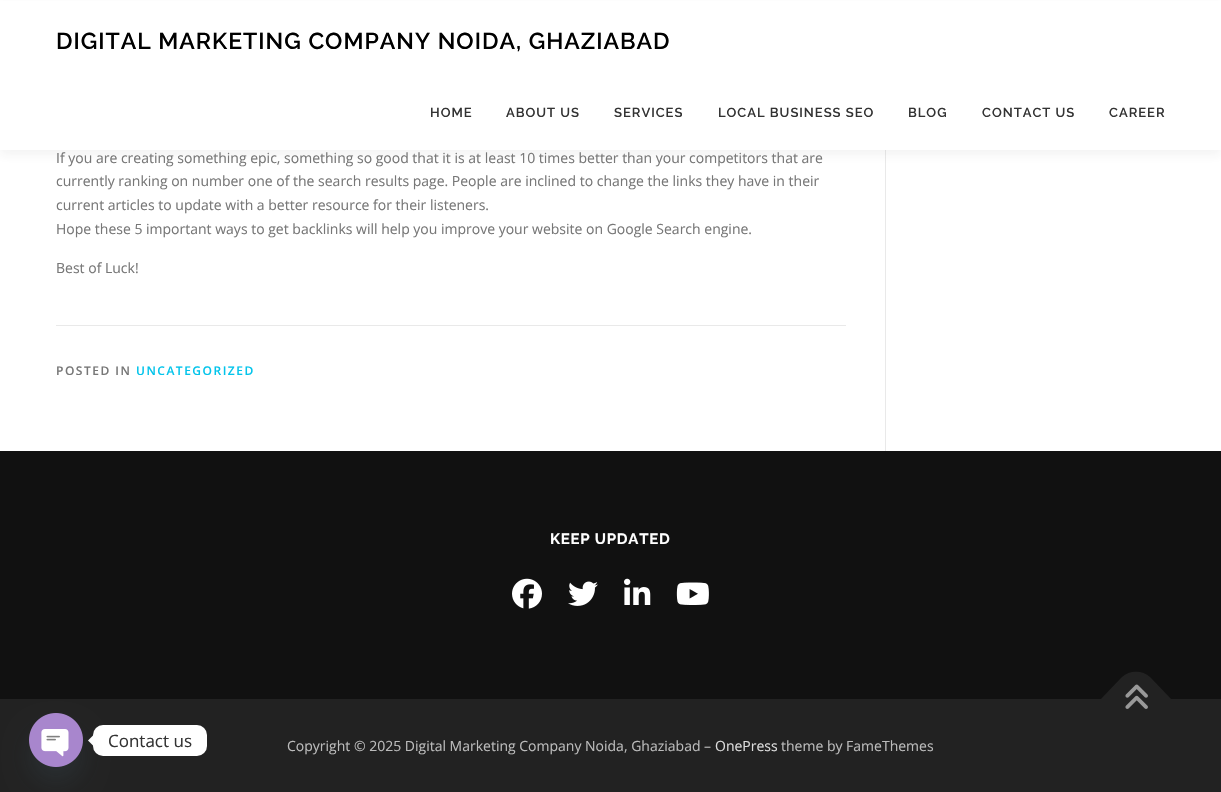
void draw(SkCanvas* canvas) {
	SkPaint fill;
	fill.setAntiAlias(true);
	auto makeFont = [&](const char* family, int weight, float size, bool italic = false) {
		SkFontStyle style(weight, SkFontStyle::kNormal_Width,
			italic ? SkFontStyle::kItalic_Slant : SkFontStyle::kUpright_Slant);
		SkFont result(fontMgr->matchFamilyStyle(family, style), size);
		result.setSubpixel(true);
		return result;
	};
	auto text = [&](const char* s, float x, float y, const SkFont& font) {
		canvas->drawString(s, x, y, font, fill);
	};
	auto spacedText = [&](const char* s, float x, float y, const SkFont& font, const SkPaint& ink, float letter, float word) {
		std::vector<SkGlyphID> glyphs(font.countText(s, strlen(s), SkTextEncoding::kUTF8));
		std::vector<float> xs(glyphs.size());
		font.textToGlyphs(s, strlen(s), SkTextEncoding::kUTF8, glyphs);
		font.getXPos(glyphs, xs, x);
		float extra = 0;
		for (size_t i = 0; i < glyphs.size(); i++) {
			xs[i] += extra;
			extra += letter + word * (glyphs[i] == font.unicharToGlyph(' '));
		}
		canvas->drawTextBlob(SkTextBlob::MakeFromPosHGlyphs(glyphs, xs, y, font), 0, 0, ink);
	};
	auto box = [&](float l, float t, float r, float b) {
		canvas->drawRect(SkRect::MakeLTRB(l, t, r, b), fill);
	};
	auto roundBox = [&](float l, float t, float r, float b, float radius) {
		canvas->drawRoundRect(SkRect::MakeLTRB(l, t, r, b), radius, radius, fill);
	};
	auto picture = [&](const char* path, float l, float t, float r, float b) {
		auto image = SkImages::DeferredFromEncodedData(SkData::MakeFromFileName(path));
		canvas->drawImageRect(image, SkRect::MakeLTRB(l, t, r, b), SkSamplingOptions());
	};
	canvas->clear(0xFFFFFFFF);
	fill.setColor(0xFFE9E9E9);
	box(885, 150, 886, 451);
	fill.setColor(0x0F323232);
	fill.setMaskFilter(SkMaskFilter::MakeBlur(kNormal_SkBlurStyle, 5));
	canvas->drawRect(SkRect::MakeLTRB(0, 5, 1221, 155), fill);
	fill.setMaskFilter(nullptr);
	fill.setColor(0xFFFFFFFF);
	box(0, 1, 1221, 150);
	fill.setColor(0xFFE9E9E9);
	box(56, 325, 846, 326);
	fill.setColor(0xFF111111);
	box(0, 451, 1221, 699);
	picture("image0.png", 512, 578, 542, 609);
	picture("image1.png", 568, 581, 598, 606);
	picture("image2.png", 624, 578, 651, 605);
	picture("image3.png", 676, 582, 709, 605);
	fill.setColor(0xFF222222);
	box(0, 699, 1221, 792);
	canvas->drawPath(SkPathBuilder().moveTo(1101, 699).lineTo(1122, 677).cubicTo(1130, 670, 1142, 670, 1150, 677).lineTo(1171, 699).lineTo(1136, 734).close().detach(), fill);
	picture("image4.png", 1125, 684, 1148, 709);
	fill.setColor(0xFFFFFFFF);
	roundBox(93, 725, 207, 756, 10);
	canvas->drawPath(SkPathBuilder().moveTo(93, 735.5f).lineTo(93, 745.5f).lineTo(88, 740.5f).close().detach(), fill);
	fill.setColor(0x2949687E);
	fill.setMaskFilter(SkMaskFilter::MakeBlur(kNormal_SkBlurStyle, 12));
	canvas->drawRoundRect(SkRect::MakeLTRB(29, 729, 83, 783), 27, 27, fill);
	fill.setMaskFilter(nullptr);
	picture("image5.png", 29, 713, 83, 767);
	auto font1 = makeFont("Raleway", 600, 23);
	fill.setColor(0xFF000000);
	spacedText("DIGITAL MARKETING COMPANY NOIDA, GHAZIABAD", 56, 49, font1, fill, 1, 0);
	auto font2 = makeFont("Raleway", 600, 13);
	fill.setColor(0xFF333333);
	spacedText("HOME", 430, 117, font2, fill, 1, 0);
	spacedText("ABOUT US", 506, 117, font2, fill, 1, 0);
	spacedText("SERVICES", 614, 117, font2, fill, 1, 0);
	spacedText("LOCAL BUSINESS SEO", 718, 117, font2, fill, 1, 0);
	spacedText("BLOG", 908, 117, font2, fill, 1, 0);
	spacedText("CONTACT US", 982, 117, font2, fill, 1, 0);
	spacedText("CAREER", 1109, 117, font2, fill, 1, 0);
	auto font3 = makeFont("Open Sans", 400, 14);
	fill.setColor(0xFF777777);
	text("If you are creating something epic, something so good that it is at least 10 times better than your competitors that are", 56, 163, font3);
	text("currently ranking on number one of the search results page. People are inclined to change the links they have in their", 56, 186, font3);
	text("current articles to update with a better resource for their listeners.", 56, 210, font3);
	text("Hope these 5 important ways to get backlinks will help you improve your website on Google Search engine.", 56, 234, font3);
	text("Best of Luck!", 56, 273, font3);
	auto font4 = makeFont("Open Sans", 600, 12);
	spacedText("POSTED IN", 56, 375, font4, fill, 1.5f, 0);
	fill.setColor(0xFF03C4EB);
	spacedText("UNCATEGORIZED", 136, 375, font4, fill, 1.5f, 0);
	auto font5 = makeFont("Raleway", 700, 15);
	fill.setColor(0xFFFFFFFF);
	spacedText("KEEP UPDATED", 550, 544, font5, fill, 0.75f, 0);
	fill.setColor(0xFFBBBBBB);
	text("Copyright © 2025 Digital Marketing Company Noida, Ghaziabad –", 287, 751, font3);
	fill.setColor(0xFFDDDDDD);
	text("OnePress", 715, 751, font3);
	fill.setColor(0xFFBBBBBB);
	text("theme by FameThemes", 781, 751, font3);
	auto font6 = makeFont("Open Sans", 400, 17);
	fill.setColor(0xFF333333);
	text("Contact us", 108, 747, font6);
}
